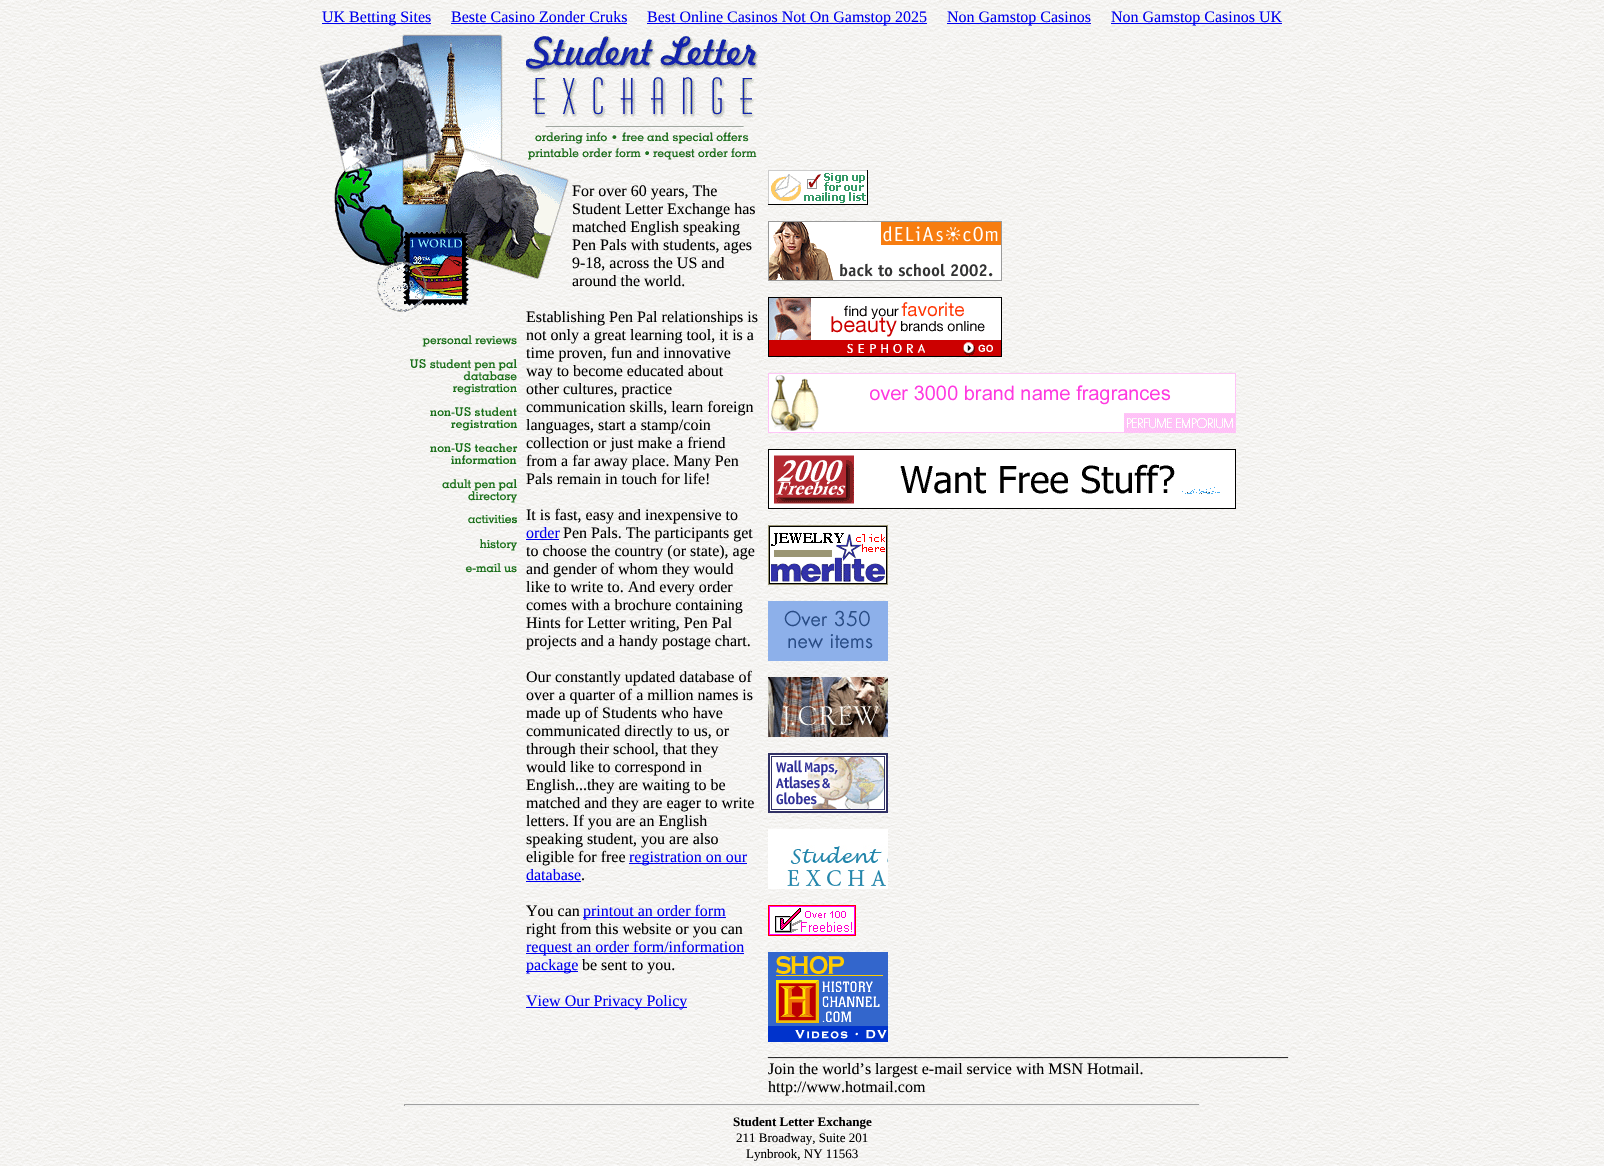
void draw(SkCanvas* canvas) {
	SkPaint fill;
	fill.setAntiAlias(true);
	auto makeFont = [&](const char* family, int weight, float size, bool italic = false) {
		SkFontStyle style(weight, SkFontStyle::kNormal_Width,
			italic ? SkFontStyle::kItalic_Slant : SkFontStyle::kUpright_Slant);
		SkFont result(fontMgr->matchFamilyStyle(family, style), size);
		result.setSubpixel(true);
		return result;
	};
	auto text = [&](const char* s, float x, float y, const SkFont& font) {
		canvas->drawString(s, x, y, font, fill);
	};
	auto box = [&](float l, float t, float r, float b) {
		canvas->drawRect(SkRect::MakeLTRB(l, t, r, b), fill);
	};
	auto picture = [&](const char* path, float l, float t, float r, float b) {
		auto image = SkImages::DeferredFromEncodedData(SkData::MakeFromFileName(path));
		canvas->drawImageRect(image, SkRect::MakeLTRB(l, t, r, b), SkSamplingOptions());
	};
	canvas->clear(0xFFFFFFFF);
	picture("image0.png", 0, 0, 1604, 1166);
	fill.setColor(0xFF0000EE);
	box(322, 23, 431, 24);
	box(451, 23, 627, 24);
	box(647, 23, 927, 24);
	box(947, 23, 1091, 24);
	box(1111, 23, 1282, 24);
	picture("image1.png", 317, 34, 526, 312);
	picture("image2.png", 410, 335, 518, 573);
	picture("image3.png", 526, 36, 759, 160);
	picture("image4.png", 526, 166, 569, 280);
	box(526, 539, 559, 540);
	box(629, 863, 747, 864);
	box(526, 881, 581, 882);
	box(583, 917, 726, 918);
	box(526, 953, 744, 954);
	box(526, 971, 578, 972);
	box(526, 1007, 687, 1008);
	picture("image5.png", 768, 170, 868, 205);
	picture("image6.png", 768, 221, 1002, 281);
	picture("image7.png", 768, 297, 1002, 357);
	picture("image8.png", 768, 373, 1236, 433);
	picture("image9.png", 768, 449, 1236, 509);
	picture("image10.png", 768, 525, 888, 585);
	picture("image11.png", 768, 601, 888, 661);
	picture("image12.png", 768, 677, 888, 737);
	picture("image13.png", 768, 753, 888, 813);
	picture("image14.png", 768, 829, 888, 889);
	picture("image15.png", 768, 905, 856, 936);
	picture("image16.png", 768, 952, 888, 1042);
	fill.setColor(0xFF9F9F9F);
	box(404, 1104, 1200, 1105);
	fill.setColor(0xFFEEEEEE);
	box(1199, 1104, 1200, 1106);
	box(404, 1105, 1200, 1106);
	fill.setColor(0xFF9F9F9F);
	box(404, 1104, 405, 1106);
	auto font1 = makeFont("Liberation Serif", 400, 16);
	fill.setColor(0xFF0000EE);
	text("UK Betting Sites", 322, 22, font1);
	text("Beste Casino Zonder Cruks", 451, 22, font1);
	text("Best Online Casinos Not On Gamstop 2025", 647, 22, font1);
	text("Non Gamstop Casinos", 947, 22, font1);
	text("Non Gamstop Casinos UK", 1111, 22, font1);
	fill.setColor(0xFF000000);
	text("For over 60 years, The", 572, 196, font1);
	text("Student Letter Exchange has", 572, 214, font1);
	text("matched English speaking", 572, 232, font1);
	text("Pen Pals with students, ages", 572, 250, font1);
	text("9-18, across the US and", 572, 268, font1);
	text("around the world.", 572, 286, font1);
	text("Establishing Pen Pal relationships is", 526, 322, font1);
	text("not only a great learning tool, it is a", 526, 340, font1);
	text("time proven, fun and innovative", 526, 358, font1);
	text("way to become educated about", 526, 376, font1);
	text("other cultures, practice", 526, 394, font1);
	text("communication skills, learn foreign", 526, 412, font1);
	text("languages, start a stamp/coin", 526, 430, font1);
	text("collection or just make a friend", 526, 448, font1);
	text("from a far away place. Many Pen", 526, 466, font1);
	text("Pals remain in touch for life!", 526, 484, font1);
	text("It is fast, easy and inexpensive to", 526, 520, font1);
	fill.setColor(0xFF0000EE);
	text("order", 526, 538, font1);
	fill.setColor(0xFF000000);
	text("Pen Pals. The participants get", 563, 538, font1);
	text("to choose the country (or state), age", 526, 556, font1);
	text("and gender of whom they would", 526, 574, font1);
	text("like to write to. And every order", 526, 592, font1);
	text("comes with a brochure containing", 526, 610, font1);
	text("Hints for Letter writing, Pen Pal", 526, 628, font1);
	text("projects and a handy postage chart.", 526, 646, font1);
	text("Our constantly updated database of", 526, 682, font1);
	text("over a quarter of a million names is", 526, 700, font1);
	text("made up of Students who have", 526, 718, font1);
	text("communicated directly to us, or", 526, 736, font1);
	text("through their school, that they", 526, 754, font1);
	text("would like to correspond in", 526, 772, font1);
	text("English...they are waiting to be", 526, 790, font1);
	text("matched and they are eager to write", 526, 808, font1);
	text("letters. If you are an English", 526, 826, font1);
	text("speaking student, you are also", 526, 844, font1);
	text("eligible for free", 526, 862, font1);
	fill.setColor(0xFF0000EE);
	text("registration on our", 629, 862, font1);
	text("database", 526, 880, font1);
	fill.setColor(0xFF000000);
	text(".", 581, 880, font1);
	text("You can", 526, 916, font1);
	fill.setColor(0xFF0000EE);
	text("printout an order form", 583, 916, font1);
	fill.setColor(0xFF000000);
	text("right from this website or you can", 526, 934, font1);
	fill.setColor(0xFF0000EE);
	text("request an order form/information", 526, 952, font1);
	text("package", 526, 970, font1);
	fill.setColor(0xFF000000);
	text("be sent to you.", 582, 970, font1);
	fill.setColor(0xFF0000EE);
	text("View Our Privacy Policy", 526, 1006, font1);
	fill.setColor(0xFF000000);
	text("_________________________________________________________________", 768, 1056, font1);
	text("Join the world’s largest e-mail service with MSN Hotmail.", 768, 1074, font1);
	text("http://www.hotmail.com", 768, 1092, font1);
	auto font2 = makeFont("Liberation Serif", 700, 13);
	text("Student Letter Exchange", 733, 1126, font2);
	auto font3 = makeFont("Liberation Serif", 400, 13);
	text("211 Broadway, Suite 201", 736, 1142, font3);
	text("Lynbrook, NY 11563", 746, 1158, font3);
}
